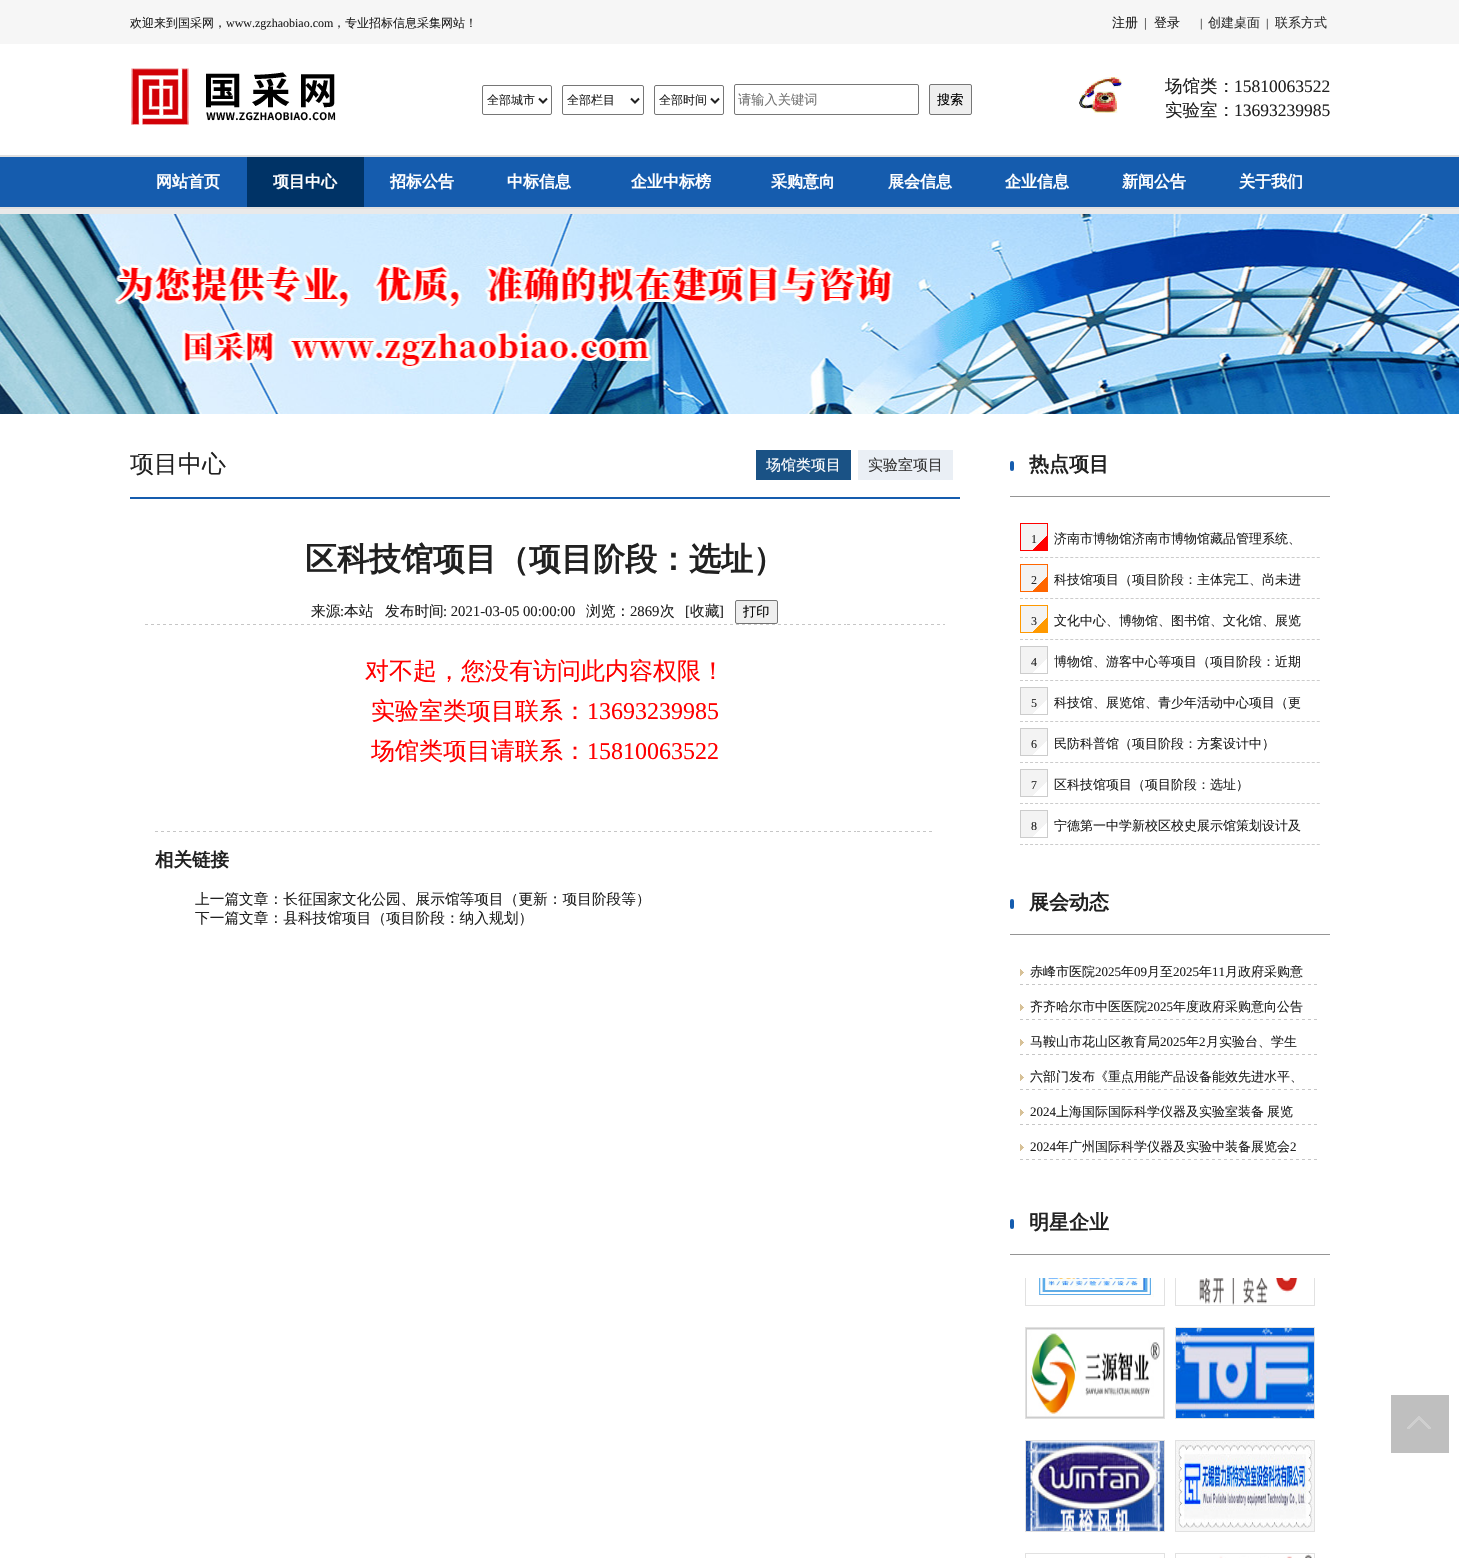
void draw(SkCanvas* canvas) {
	SkPaint fill;
	fill.setAntiAlias(true);
	auto makeFont = [&](const char* family, int weight, float size, bool italic = false) {
		SkFontStyle style(weight, SkFontStyle::kNormal_Width,
			italic ? SkFontStyle::kItalic_Slant : SkFontStyle::kUpright_Slant);
		SkFont result(fontMgr->matchFamilyStyle(family, style), size);
		result.setSubpixel(true);
		return result;
	};
	auto text = [&](const char* s, float x, float y, const SkFont& font) {
		canvas->drawString(s, x, y, font, fill);
	};
	auto spacedText = [&](const char* s, float x, float y, const SkFont& font, const SkPaint& ink, float letter, float word) {
		std::vector<SkGlyphID> glyphs(font.countText(s, strlen(s), SkTextEncoding::kUTF8));
		std::vector<float> xs(glyphs.size());
		font.textToGlyphs(s, strlen(s), SkTextEncoding::kUTF8, glyphs);
		font.getXPos(glyphs, xs, x);
		float extra = 0;
		for (size_t i = 0; i < glyphs.size(); i++) {
			xs[i] += extra;
			extra += letter + word * (glyphs[i] == font.unicharToGlyph(' '));
		}
		canvas->drawTextBlob(SkTextBlob::MakeFromPosHGlyphs(glyphs, xs, y, font), 0, 0, ink);
	};
	auto box = [&](float l, float t, float r, float b) {
		canvas->drawRect(SkRect::MakeLTRB(l, t, r, b), fill);
	};
	auto roundBox = [&](float l, float t, float r, float b, float radius) {
		canvas->drawRoundRect(SkRect::MakeLTRB(l, t, r, b), radius, radius, fill);
	};
	auto picture = [&](const char* path, float l, float t, float r, float b) {
		auto image = SkImages::DeferredFromEncodedData(SkData::MakeFromFileName(path));
		canvas->drawImageRect(image, SkRect::MakeLTRB(l, t, r, b), SkSamplingOptions());
	};
	canvas->clear(0xFFFFFFFF);
	fill.setColor(0xFFF6F6F6);
	box(0, 0, 1459, 44);
	picture("image0.png", 131, 68, 336, 125);
	fill.setStyle(SkPaint::kStroke_Style);
	fill.setStrokeWidth(1);
	fill.setColor(0xFF767676);
	canvas->drawRoundRect(SkRect::MakeLTRB(482.5f, 85.5f, 551.5f, 114.5f), 1.5f, 1.5f, fill);
	fill.setStrokeWidth(2);
	fill.setColor(0xFF212121);
	canvas->drawPath(SkPathBuilder().moveTo(539, 98.5f).lineTo(543, 102.5f).lineTo(547, 98.5f).detach(), fill);
	fill.setStrokeWidth(1);
	fill.setColor(0xFF767676);
	canvas->drawRoundRect(SkRect::MakeLTRB(562.5f, 85.5f, 643.5f, 114.5f), 1.5f, 1.5f, fill);
	fill.setStrokeWidth(2);
	fill.setColor(0xFF212121);
	canvas->drawPath(SkPathBuilder().moveTo(631, 98.5f).lineTo(635, 102.5f).lineTo(639, 98.5f).detach(), fill);
	fill.setStrokeWidth(1);
	fill.setColor(0xFF767676);
	canvas->drawRoundRect(SkRect::MakeLTRB(654.5f, 85.5f, 723.5f, 114.5f), 1.5f, 1.5f, fill);
	fill.setStrokeWidth(2);
	fill.setColor(0xFF212121);
	canvas->drawPath(SkPathBuilder().moveTo(711, 98.5f).lineTo(715, 102.5f).lineTo(719, 98.5f).detach(), fill);
	fill.setStrokeWidth(1);
	fill.setColor(0xFF767676);
	canvas->drawRoundRect(SkRect::MakeLTRB(734.5f, 84.5f, 918.5f, 114.5f), 1.5f, 1.5f, fill);
	fill.setStyle(SkPaint::kFill_Style);
	fill.setColor(0xFFEFEFEF);
	canvas->drawRoundRect(SkRect::MakeLTRB(929.5f, 84.5f, 971.5f, 114.5f), 1.5f, 1.5f, fill);
	fill.setStyle(SkPaint::kStroke_Style);
	fill.setColor(0xFF767676);
	canvas->drawRoundRect(SkRect::MakeLTRB(929.5f, 84.5f, 971.5f, 114.5f), 1.5f, 1.5f, fill);
	picture("image1.png", 1079, 77, 1122, 113);
	fill.setStyle(SkPaint::kFill_Style);
	fill.setColor(0xFFE0E0E0);
	box(0, 155, 1459, 157);
	fill.setColor(0xFF155CAE);
	box(0, 157, 1459, 207);
	fill.setColor(0xFF003366);
	box(247, 157, 364, 207);
	fill.setColor(0xFFE0E0E0);
	box(0, 207, 1459, 209);
	fill.setColor(0xFFE9E9E9);
	box(0, 209, 1459, 214);
	picture("image2.png", 0, 214, 1459, 414);
	fill.setColor(0xFF1A5285);
	box(756, 450, 851, 480);
	fill.setColor(0xFFEAEFF5);
	box(858, 450, 953, 480);
	fill.setColor(0xFF155CAE);
	box(130, 497, 960, 499);
	fill.setColor(0xFFEFEFEF);
	canvas->drawRoundRect(SkRect::MakeLTRB(735.5f, 600.5f, 777.5f, 623.5f), 1.5f, 1.5f, fill);
	fill.setStyle(SkPaint::kStroke_Style);
	fill.setColor(0xFF767676);
	canvas->drawRoundRect(SkRect::MakeLTRB(735.5f, 600.5f, 777.5f, 623.5f), 1.5f, 1.5f, fill);
	picture("image3.png", 145, 624, 945, 625);
	picture("image4.png", 155, 831, 932, 832);
	fill.setStyle(SkPaint::kFill_Style);
	fill.setColor(0xFF959595);
	box(1010, 496, 1330, 497);
	fill.setColor(0xFF155CAE);
	roundBox(1010, 461, 1014, 471, 2);
	fill.setStyle(SkPaint::kStroke_Style);
	fill.setColor(0xFFCCCCCC);
	fill.setPathEffect(SkDashPathEffect::Make({{3, 2.03f}}, 0));
	canvas->drawPath(SkPathBuilder().moveTo(1020, 557.5f).lineTo(1320, 557.5f).detach(), fill);
	fill.setPathEffect(nullptr);
	fill.setStyle(SkPaint::kFill_Style);
	{
		const SkColor colors[] = {0xFFFF0000, 0xFFF3F3F3};
		const float stops[] = {0.27f, 0.27f};
		const SkPoint ends[] = {{1047, 550}, {1021, 524}};
		fill.setShader(SkGradientShader::MakeLinear(ends, colors, stops, 2, SkTileMode::kClamp));
		fill.setAlpha(255);
	}
	box(1021, 524, 1047, 550);
	fill.setStyle(SkPaint::kStroke_Style);
	fill.setShader(nullptr);
	fill.setColor(0xFFFF0000);
	canvas->drawRect(SkRect::MakeLTRB(1020.5f, 523.5f, 1047.5f, 550.5f), fill);
	fill.setColor(0xFFCCCCCC);
	fill.setPathEffect(SkDashPathEffect::Make({{3, 2.03f}}, 0));
	canvas->drawPath(SkPathBuilder().moveTo(1020, 598.5f).lineTo(1320, 598.5f).detach(), fill);
	fill.setPathEffect(nullptr);
	fill.setStyle(SkPaint::kFill_Style);
	{
		const SkColor colors[] = {0xFFFF6600, 0xFFF3F3F3};
		const float stops[] = {0.27f, 0.27f};
		const SkPoint ends[] = {{1047, 591}, {1021, 565}};
		fill.setShader(SkGradientShader::MakeLinear(ends, colors, stops, 2, SkTileMode::kClamp));
		fill.setAlpha(255);
	}
	box(1021, 565, 1047, 591);
	fill.setStyle(SkPaint::kStroke_Style);
	fill.setShader(nullptr);
	fill.setColor(0xFFFF6600);
	canvas->drawRect(SkRect::MakeLTRB(1020.5f, 564.5f, 1047.5f, 591.5f), fill);
	fill.setColor(0xFFCCCCCC);
	fill.setPathEffect(SkDashPathEffect::Make({{3, 2.03f}}, 0));
	canvas->drawPath(SkPathBuilder().moveTo(1020, 639.5f).lineTo(1320, 639.5f).detach(), fill);
	fill.setPathEffect(nullptr);
	fill.setStyle(SkPaint::kFill_Style);
	{
		const SkColor colors[] = {0xFFFF9900, 0xFFF3F3F3};
		const float stops[] = {0.27f, 0.27f};
		const SkPoint ends[] = {{1047, 632}, {1021, 606}};
		fill.setShader(SkGradientShader::MakeLinear(ends, colors, stops, 2, SkTileMode::kClamp));
		fill.setAlpha(255);
	}
	box(1021, 606, 1047, 632);
	fill.setStyle(SkPaint::kStroke_Style);
	fill.setShader(nullptr);
	fill.setColor(0xFFFF9900);
	canvas->drawRect(SkRect::MakeLTRB(1020.5f, 605.5f, 1047.5f, 632.5f), fill);
	fill.setColor(0xFFCCCCCC);
	fill.setPathEffect(SkDashPathEffect::Make({{3, 2.03f}}, 0));
	canvas->drawPath(SkPathBuilder().moveTo(1020, 680.5f).lineTo(1320, 680.5f).detach(), fill);
	fill.setPathEffect(nullptr);
	fill.setStyle(SkPaint::kFill_Style);
	{
		const SkColor colors[] = {0xFFFFFFFF, 0xFFF3F3F3};
		const float stops[] = {0.27f, 0.27f};
		const SkPoint ends[] = {{1047, 673}, {1021, 647}};
		fill.setShader(SkGradientShader::MakeLinear(ends, colors, stops, 2, SkTileMode::kClamp));
		fill.setAlpha(255);
	}
	box(1021, 647, 1047, 673);
	fill.setStyle(SkPaint::kStroke_Style);
	fill.setShader(nullptr);
	fill.setColor(0xFFCCCCCC);
	canvas->drawRect(SkRect::MakeLTRB(1020.5f, 646.5f, 1047.5f, 673.5f), fill);
	fill.setPathEffect(SkDashPathEffect::Make({{3, 2.03f}}, 0));
	canvas->drawPath(SkPathBuilder().moveTo(1020, 721.5f).lineTo(1320, 721.5f).detach(), fill);
	fill.setPathEffect(nullptr);
	fill.setStyle(SkPaint::kFill_Style);
	{
		const SkColor colors[] = {0xFFFFFFFF, 0xFFF3F3F3};
		const float stops[] = {0.27f, 0.27f};
		const SkPoint ends[] = {{1047, 714}, {1021, 688}};
		fill.setShader(SkGradientShader::MakeLinear(ends, colors, stops, 2, SkTileMode::kClamp));
		fill.setAlpha(255);
	}
	box(1021, 688, 1047, 714);
	fill.setStyle(SkPaint::kStroke_Style);
	fill.setShader(nullptr);
	fill.setColor(0xFFCCCCCC);
	canvas->drawRect(SkRect::MakeLTRB(1020.5f, 687.5f, 1047.5f, 714.5f), fill);
	fill.setPathEffect(SkDashPathEffect::Make({{3, 2.03f}}, 0));
	canvas->drawPath(SkPathBuilder().moveTo(1020, 762.5f).lineTo(1320, 762.5f).detach(), fill);
	fill.setPathEffect(nullptr);
	fill.setStyle(SkPaint::kFill_Style);
	{
		const SkColor colors[] = {0xFFFFFFFF, 0xFFF3F3F3};
		const float stops[] = {0.27f, 0.27f};
		const SkPoint ends[] = {{1047, 755}, {1021, 729}};
		fill.setShader(SkGradientShader::MakeLinear(ends, colors, stops, 2, SkTileMode::kClamp));
		fill.setAlpha(255);
	}
	box(1021, 729, 1047, 755);
	fill.setStyle(SkPaint::kStroke_Style);
	fill.setShader(nullptr);
	fill.setColor(0xFFCCCCCC);
	canvas->drawRect(SkRect::MakeLTRB(1020.5f, 728.5f, 1047.5f, 755.5f), fill);
	fill.setPathEffect(SkDashPathEffect::Make({{3, 2.03f}}, 0));
	canvas->drawPath(SkPathBuilder().moveTo(1020, 803.5f).lineTo(1320, 803.5f).detach(), fill);
	fill.setPathEffect(nullptr);
	fill.setStyle(SkPaint::kFill_Style);
	{
		const SkColor colors[] = {0xFFFFFFFF, 0xFFF3F3F3};
		const float stops[] = {0.27f, 0.27f};
		const SkPoint ends[] = {{1047, 796}, {1021, 770}};
		fill.setShader(SkGradientShader::MakeLinear(ends, colors, stops, 2, SkTileMode::kClamp));
		fill.setAlpha(255);
	}
	box(1021, 770, 1047, 796);
	fill.setStyle(SkPaint::kStroke_Style);
	fill.setShader(nullptr);
	fill.setColor(0xFFCCCCCC);
	canvas->drawRect(SkRect::MakeLTRB(1020.5f, 769.5f, 1047.5f, 796.5f), fill);
	fill.setPathEffect(SkDashPathEffect::Make({{3, 2.03f}}, 0));
	canvas->drawPath(SkPathBuilder().moveTo(1020, 844.5f).lineTo(1320, 844.5f).detach(), fill);
	fill.setPathEffect(nullptr);
	fill.setStyle(SkPaint::kFill_Style);
	{
		const SkColor colors[] = {0xFFFFFFFF, 0xFFF3F3F3};
		const float stops[] = {0.27f, 0.27f};
		const SkPoint ends[] = {{1047, 837}, {1021, 811}};
		fill.setShader(SkGradientShader::MakeLinear(ends, colors, stops, 2, SkTileMode::kClamp));
		fill.setAlpha(255);
	}
	box(1021, 811, 1047, 837);
	fill.setStyle(SkPaint::kStroke_Style);
	fill.setShader(nullptr);
	fill.setColor(0xFFCCCCCC);
	canvas->drawRect(SkRect::MakeLTRB(1020.5f, 810.5f, 1047.5f, 837.5f), fill);
	fill.setStyle(SkPaint::kFill_Style);
	fill.setColor(0xFF959595);
	box(1010, 934, 1330, 935);
	fill.setColor(0xFF155CAE);
	roundBox(1010, 899, 1014, 909, 2);
	picture("image5.png", 1020, 969, 1024, 976);
	picture("image6.png", 1020, 984, 1317, 985);
	picture("image5.png", 1020, 1004, 1024, 1011);
	picture("image6.png", 1020, 1019, 1317, 1020);
	picture("image5.png", 1020, 1039, 1024, 1046);
	picture("image6.png", 1020, 1054, 1317, 1055);
	picture("image5.png", 1020, 1074, 1024, 1081);
	picture("image6.png", 1020, 1089, 1317, 1090);
	picture("image5.png", 1020, 1109, 1024, 1116);
	picture("image6.png", 1020, 1124, 1317, 1125);
	picture("image5.png", 1020, 1144, 1024, 1151);
	picture("image6.png", 1020, 1159, 1317, 1160);
	fill.setColor(0xFF959595);
	box(1010, 1254, 1330, 1255);
	fill.setColor(0xFF155CAE);
	roundBox(1010, 1219, 1014, 1229, 2);
	canvas->save();
	canvas->clipRect(SkRect::MakeLTRB(1020, 1278, 1320, 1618));
	fill.setStyle(SkPaint::kStroke_Style);
	fill.setColor(0xFFE1E1E1);
	canvas->drawRect(SkRect::MakeLTRB(1175.5f, 1214.5f, 1314.5f, 1305.5f), fill);
	canvas->restore();
	picture("image8.png", 1199, 1278, 1298, 1305);
	canvas->drawRect(SkRect::MakeLTRB(1025.5f, 1327.5f, 1164.5f, 1418.5f), fill);
	picture("image9.png", 1026, 1328, 1164, 1418);
	canvas->drawRect(SkRect::MakeLTRB(1175.5f, 1327.5f, 1314.5f, 1418.5f), fill);
	picture("image10.png", 1176, 1328, 1314, 1418);
	canvas->drawRect(SkRect::MakeLTRB(1025.5f, 1440.5f, 1164.5f, 1531.5f), fill);
	picture("image11.png", 1026, 1441, 1164, 1531);
	canvas->drawRect(SkRect::MakeLTRB(1175.5f, 1440.5f, 1314.5f, 1531.5f), fill);
	picture("image12.png", 1176, 1441, 1314, 1531);
	canvas->drawRect(SkRect::MakeLTRB(1025.5f, 1553.5f, 1164.5f, 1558.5f), fill);
	canvas->drawRect(SkRect::MakeLTRB(1175.5f, 1553.5f, 1314.5f, 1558.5f), fill);
	picture("image13.png", 1219, 1554, 1312, 1558);
	fill.setStyle(SkPaint::kFill_Style);
	fill.setColor(0xFFBFBFBF);
	box(1391, 1395, 1449, 1453);
	picture("image14.png", 1407, 1416, 1431, 1429);
	auto font1 = makeFont("WenQuanYi Zen Hei", 500, 12);
	fill.setColor(0xFF212121);
	text("欢迎来到国采网，", 130, 27, font1);
	auto font2 = makeFont("Liberation Serif", 400, 12);
	text("www.zgzhaobiao.com", 226, 27, font2);
	text("，专业招标信息采集网站！", 333, 27, font1);
	auto font3 = makeFont("WenQuanYi Zen Hei", 500, 13);
	text("注册", 1112, 27, font3);
	auto font4 = makeFont("Liberation Serif", 400, 13);
	fill.setColor(0xFF333333);
	text("|", 1144, 27, font4);
	fill.setColor(0xFF212121);
	text("登录", 1154, 27, font3);
	text("|", 1200, 27, font2);
	fill.setColor(0xFF333333);
	text("创建桌面", 1208, 27, font3);
	fill.setColor(0xFF212121);
	text("|", 1266, 27, font2);
	fill.setColor(0xFF333333);
	text("联系方式", 1275, 27, font3);
	fill.setColor(0xFF212121);
	text("全部城市", 487, 104, font1);
	text("全部栏目", 567, 104, font1);
	text("全部时间", 659, 104, font1);
	auto font5 = makeFont("WenQuanYi Zen Hei", 500, 13.25f);
	fill.setColor(0xFF757575);
	text("请输入关键词", 738, 104, font5);
	fill.setColor(0xFF000000);
	text("搜索", 937, 104, font5);
	auto font6 = makeFont("WenQuanYi Zen Hei", 500, 17.5f);
	fill.setColor(0xFF212121);
	text("场馆类：", 1165, 92, font6);
	auto font7 = makeFont("Liberation Serif", 400, 17.5f);
	text("15810063522", 1234, 92, font7);
	text("实验室：", 1165, 116, font6);
	text("13693239985", 1234, 116, font7);
	auto font8 = makeFont("WenQuanYi Zen Hei", 700, 16);
	fill.setColor(0xFFFFFFFF);
	text("网站首页", 156, 187, font8);
	text("项目中心", 273, 187, font8);
	text("招标公告", 390, 187, font8);
	text("中标信息", 507, 187, font8);
	text("企业中标榜", 631, 187, font8);
	text("采购意向", 771, 187, font8);
	text("展会信息", 888, 187, font8);
	text("企业信息", 1005, 187, font8);
	text("新闻公告", 1122, 187, font8);
	text("关于我们", 1239, 187, font8);
	auto font9 = makeFont("WenQuanYi Zen Hei", 500, 24);
	fill.setColor(0xFF212121);
	text("项目中心", 130, 472, font9);
	auto font10 = makeFont("WenQuanYi Zen Hei", 500, 15);
	fill.setColor(0xFFFFFFFF);
	text("场馆类项目", 766, 470, font10);
	fill.setColor(0xFF333333);
	text("实验室项目", 868, 470, font10);
	auto font11 = makeFont("WenQuanYi Zen Hei", 700, 32);
	fill.setColor(0xFF212121);
	text("区科技馆项目（项目阶段：选址）", 305, 570, font11);
	auto font12 = makeFont("WenQuanYi Zen Hei", 500, 14.7f);
	text("来源", 311, 616, font12);
	auto font13 = makeFont("Liberation Serif", 400, 14.7f);
	text(":", 340, 616, font13);
	text("本站", 344, 616, font12);
	text("发布时间", 385, 616, font12);
	text(": 2021-03-05 00:00:00", 443, 616, font13);
	text("浏览：", 586, 616, font12);
	text("2869", 630, 616, font13);
	text("次", 660, 616, font12);
	text("[", 685, 616, font13);
	text("收藏", 690, 616, font12);
	text("]", 719, 616, font13);
	fill.setColor(0xFF000000);
	text("打印", 743, 616, font5);
	fill.setColor(0xFFFF0000);
	text("对不起，您没有访问此内容权限！", 365, 679, font9);
	text("实验室类项目联系：", 371, 719, font9);
	auto font14 = makeFont("Liberation Serif", 400, 24);
	text("13693239985", 587, 719, font14);
	text("场馆类项目请联系：", 371, 759, font9);
	text("15810063522", 587, 759, font14);
	auto font15 = makeFont("WenQuanYi Zen Hei", 700, 18.5f);
	fill.setColor(0xFF212121);
	text("相关链接", 155, 866, font15);
	text("上一篇文章：长征国家文化公园、展示馆等项目（更新：项目阶段等）", 195, 904, font12);
	text("下一篇文章：县科技馆项目（项目阶段：纳入规划）", 195, 923, font12);
	auto font16 = makeFont("WenQuanYi Zen Hei", 700, 20);
	text("热点项目", 1029, 471, font16);
	fill.setColor(0xFF282828);
	text("1", 1031, 543, font2);
	fill.setColor(0xFF212121);
	text("济南市博物馆济南市博物馆藏品管理系统、", 1054, 543, font3);
	fill.setColor(0xFF282828);
	text("2", 1031, 584, font2);
	fill.setColor(0xFF212121);
	text("科技馆项目（项目阶段：主体完工、尚未进", 1054, 584, font3);
	fill.setColor(0xFF282828);
	text("3", 1031, 625, font2);
	fill.setColor(0xFF212121);
	text("文化中心、博物馆、图书馆、文化馆、展览", 1054, 625, font3);
	text("4", 1031, 666, font2);
	text("博物馆、游客中心等项目（项目阶段：近期", 1054, 666, font3);
	text("5", 1031, 707, font2);
	text("科技馆、展览馆、青少年活动中心项目（更", 1054, 707, font3);
	text("6", 1031, 748, font2);
	text("民防科普馆（项目阶段：方案设计中）", 1054, 748, font3);
	text("7", 1031, 789, font2);
	text("区科技馆项目（项目阶段：选址）", 1054, 789, font3);
	text("8", 1031, 830, font2);
	text("宁德第一中学新校区校史展示馆策划设计及", 1054, 830, font3);
	text("展会动态", 1029, 909, font16);
	text("赤峰市医院", 1030, 976, font3);
	text("2025", 1095, 976, font4);
	text("年", 1121, 976, font3);
	text("09", 1134, 976, font4);
	text("月至", 1147, 976, font3);
	text("2025", 1173, 976, font4);
	text("年", 1199, 976, font3);
	text("11", 1212, 976, font4);
	text("月政府采购意", 1225, 976, font3);
	text("齐齐哈尔市中医医院", 1030, 1011, font3);
	text("2025", 1147, 1011, font4);
	text("年度政府采购意向公告", 1173, 1011, font3);
	text("马鞍山市花山区教育局", 1030, 1046, font3);
	text("2025", 1160, 1046, font4);
	text("年", 1186, 1046, font3);
	text("2", 1199, 1046, font4);
	text("月实验台、学生", 1206, 1046, font3);
	text("六部门发布《重点用能产品设备能效先进水平、", 1030, 1081, font3);
	text("2024", 1030, 1116, font4);
	spacedText("上海国际国际科学仪器及实验室装备 展览", 1056, 1116, font3, fill, 0, -1);
	text("2024", 1030, 1151, font4);
	text("年广州国际科学仪器及实验中装备展览会", 1056, 1151, font3);
	text("2", 1290, 1151, font4);
	text("明星企业", 1029, 1229, font16);
	canvas->save();
	canvas->clipRect(SkRect::MakeLTRB(1020, 1278, 1320, 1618));
	fill.setStyle(SkPaint::kStroke_Style);
	fill.setColor(0xFFE1E1E1);
	canvas->drawRect(SkRect::MakeLTRB(1025.5f, 1214.5f, 1164.5f, 1305.5f), fill);
	canvas->restore();
	picture("image7.png", 1039, 1278, 1154, 1297);
}
